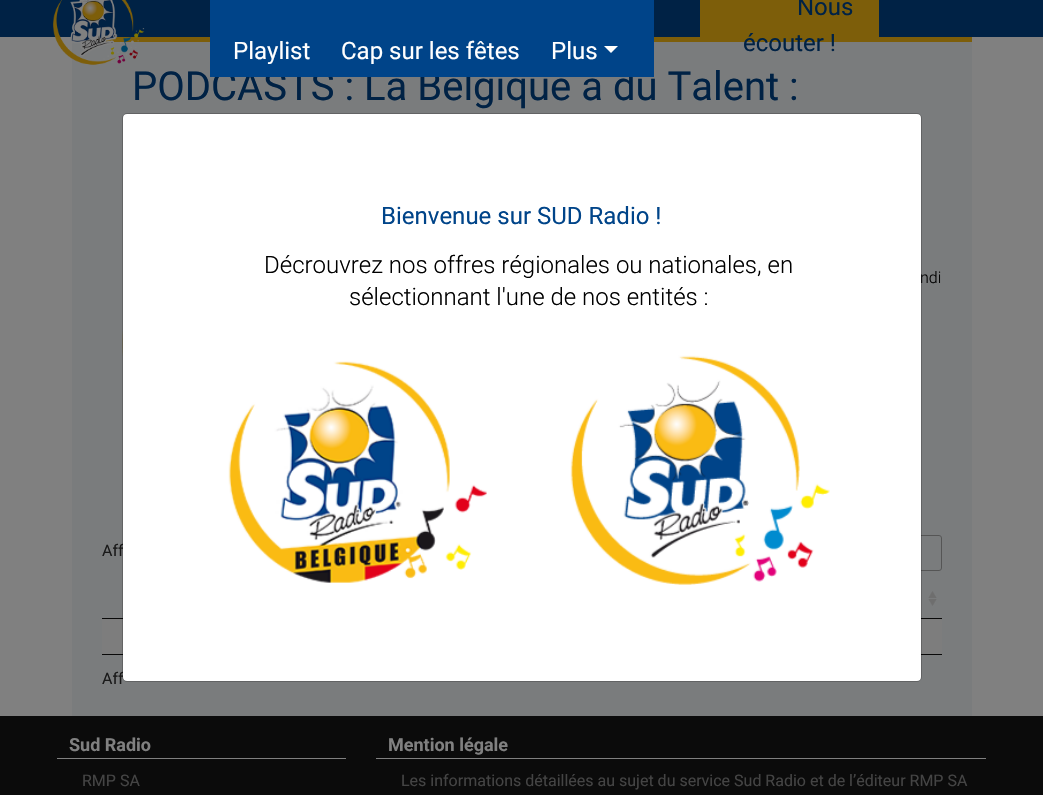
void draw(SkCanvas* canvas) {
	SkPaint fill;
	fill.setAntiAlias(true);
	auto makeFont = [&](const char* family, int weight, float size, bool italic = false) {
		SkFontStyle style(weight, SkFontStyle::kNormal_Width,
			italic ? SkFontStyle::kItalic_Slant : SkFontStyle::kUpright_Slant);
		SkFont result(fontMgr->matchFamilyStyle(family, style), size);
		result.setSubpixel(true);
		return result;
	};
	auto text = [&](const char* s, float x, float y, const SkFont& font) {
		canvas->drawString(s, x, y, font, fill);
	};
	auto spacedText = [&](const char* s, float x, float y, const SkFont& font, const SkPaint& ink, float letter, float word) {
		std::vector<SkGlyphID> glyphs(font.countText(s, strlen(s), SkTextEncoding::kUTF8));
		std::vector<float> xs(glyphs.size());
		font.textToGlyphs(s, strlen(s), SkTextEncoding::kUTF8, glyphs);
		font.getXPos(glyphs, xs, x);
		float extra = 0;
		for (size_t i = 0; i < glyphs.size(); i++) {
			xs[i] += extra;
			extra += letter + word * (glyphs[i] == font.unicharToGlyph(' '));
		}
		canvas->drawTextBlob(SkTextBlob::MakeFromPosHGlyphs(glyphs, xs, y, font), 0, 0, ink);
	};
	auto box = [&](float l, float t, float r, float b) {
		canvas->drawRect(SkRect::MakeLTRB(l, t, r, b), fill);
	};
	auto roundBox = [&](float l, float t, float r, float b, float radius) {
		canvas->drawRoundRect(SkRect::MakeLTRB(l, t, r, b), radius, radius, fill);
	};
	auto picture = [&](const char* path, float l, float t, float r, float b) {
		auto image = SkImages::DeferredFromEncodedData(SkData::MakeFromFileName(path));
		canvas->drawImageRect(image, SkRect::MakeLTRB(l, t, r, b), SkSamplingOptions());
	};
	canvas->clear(0xFF808080);
	fill.setColor(0xFF002245);
	box(0, 0, 1043, 37);
	fill.setColor(0xFF7A7C7D);
	box(72, 42, 972, 716);
	fill.setColor(0xFF7D5E0A);
	box(105, 37, 972, 42);
	picture("image0.png", 53, 0, 145, 65);
	box(700, 0, 879, 37);
	picture("image1.png", 122, 331, 123, 356);
	fill.setStyle(SkPaint::kStroke_Style);
	fill.setStrokeWidth(1);
	fill.setColor(0xFF555555);
	canvas->drawRoundRect(SkRect::MakeLTRB(727.5f, 535.5f, 941.5f, 570.5f), 2.5f, 2.5f, fill);
	fill.setStyle(SkPaint::kFill_Style);
	fill.setColor(0xFF090909);
	box(102, 654, 942, 655);
	box(102, 618, 123, 619);
	picture("image2.png", 928, 591, 937, 606);
	box(921, 618, 942, 619);
	fill.setColor(0xFF7D7D7D);
	box(102, 619, 942, 654);
	fill.setColor(0xFF0B0B0B);
	box(0, 716, 1043, 795);
	fill.setColor(0xFF808080);
	box(57, 758, 346, 759);
	box(376, 758, 986, 759);
	auto font1 = makeFont("Roboto", 400, 24);
	fill.setColor(0xFF002245);
	text("Nous", 797, 15, font1);
	text("écouter !", 743, 51, font1);
	auto font2 = makeFont("Roboto", 400, 40);
	text("PODCASTS : La Belgique a du Talent :", 132, 100, font2);
	fill.setColor(0xFF004489);
	box(210, 0, 654, 77);
	fill.setColor(0xFFFFFFFF);
	canvas->drawPath(SkPathBuilder().moveTo(604, 46).lineTo(618, 46).lineTo(611, 53).close().detach(), fill);
	text("Plus", 551, 59, font1);
	text("Cap sur les fêtes", 341, 59, font1);
	text("Playlist", 233, 59, font1);
	auto font3 = makeFont("Roboto", 300, 16);
	fill.setColor(0xFF000000);
	spacedText("ndi", 920, 283, font3, fill, 0, 1);
	auto font4 = makeFont("Roboto", 400, 16);
	fill.setColor(0xFF1A1A1A);
	text("Aff", 102, 556, font4);
	text("Aff", 102, 684, font4);
	fill.setColor(0xFFFFFFFF);
	roundBox(123, 114, 921, 681, 4);
	fill.setStyle(SkPaint::kStroke_Style);
	fill.setColor(0x33000000);
	canvas->drawRoundRect(SkRect::MakeLTRB(122.5f, 113.5f, 921.5f, 681.5f), 4.5f, 4.5f, fill);
	fill.setStyle(SkPaint::kFill_Style);
	fill.setColor(0xFF004489);
	text("Bienvenue sur SUD Radio !", 381, 224, font1);
	auto font5 = makeFont("Roboto", 300, 24);
	fill.setColor(0xFF000000);
	text("Décrouvrez nos offres régionales ou nationales, en", 264, 273, font5);
	text("sélectionnant l'une de nos entités :", 349, 305, font5);
	picture("image3.png", 228, 361, 487, 583);
	picture("image4.png", 570, 355, 830, 585);
	auto font6 = makeFont("Roboto", 700, 18);
	fill.setColor(0xFF808080);
	text("Sud Radio", 69, 751, font6);
	fill.setColor(0xFF444444);
	text("RMP SA", 82, 786, font4);
	fill.setColor(0xFF808080);
	text("Mention légale", 388, 751, font6);
	fill.setColor(0xFF444444);
	text("Les informations détaillées au sujet du service Sud Radio et de l’éditeur RMP SA", 401, 786, font4);
}
